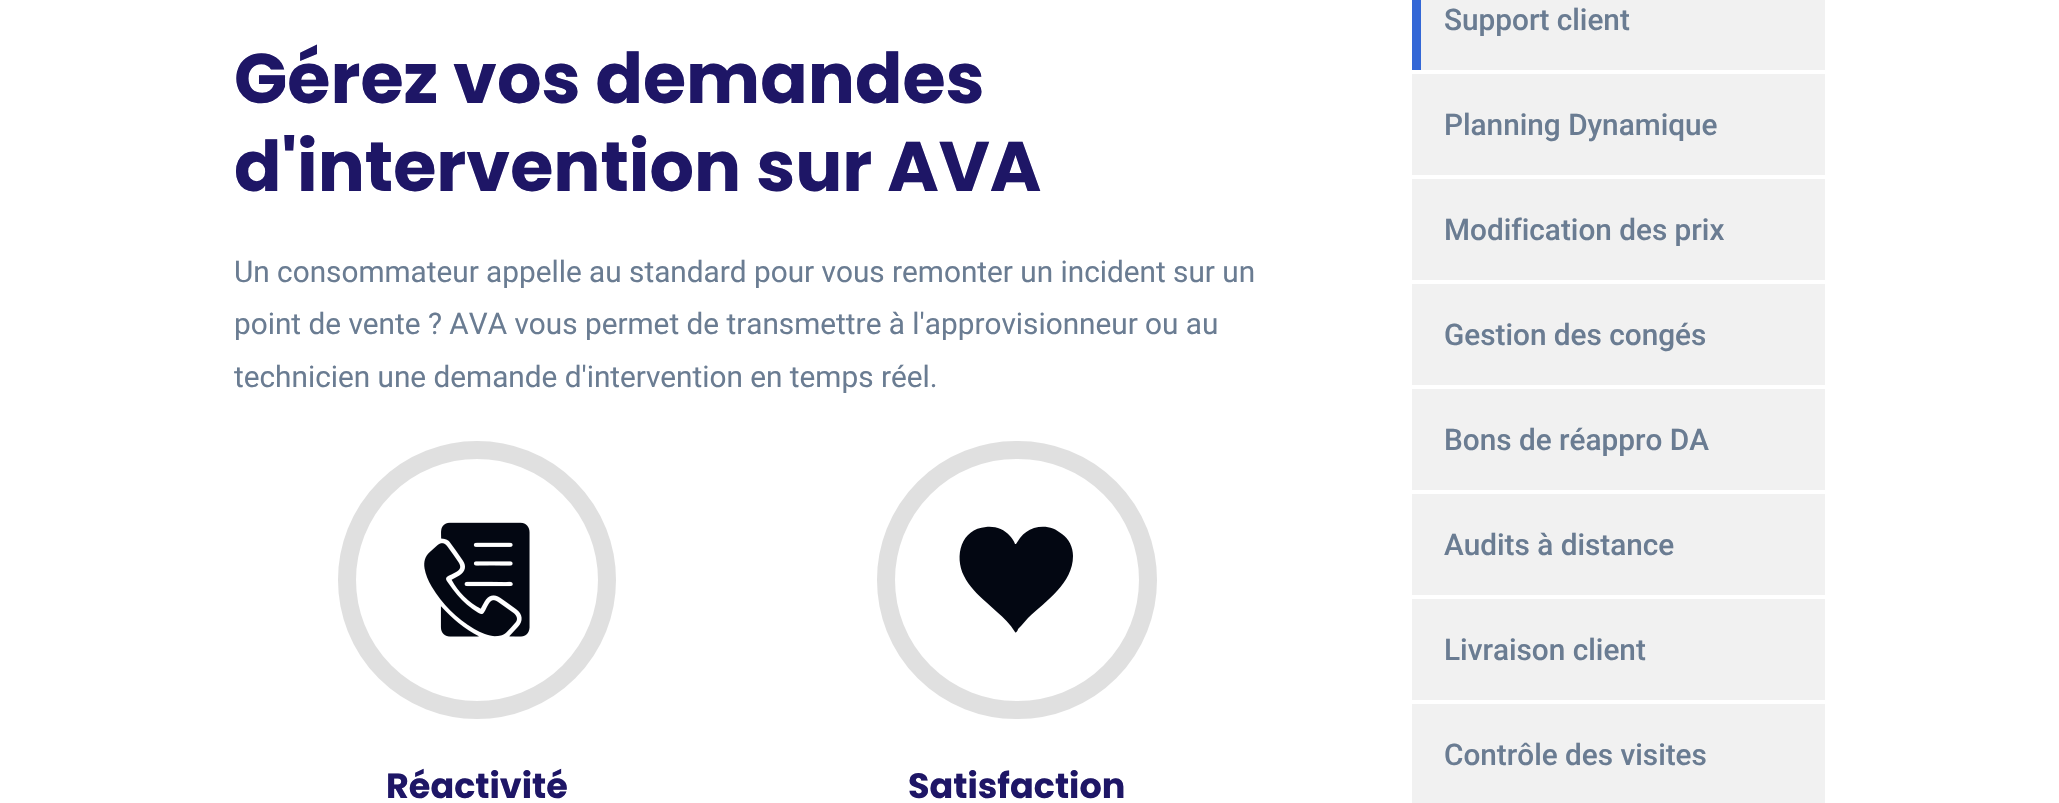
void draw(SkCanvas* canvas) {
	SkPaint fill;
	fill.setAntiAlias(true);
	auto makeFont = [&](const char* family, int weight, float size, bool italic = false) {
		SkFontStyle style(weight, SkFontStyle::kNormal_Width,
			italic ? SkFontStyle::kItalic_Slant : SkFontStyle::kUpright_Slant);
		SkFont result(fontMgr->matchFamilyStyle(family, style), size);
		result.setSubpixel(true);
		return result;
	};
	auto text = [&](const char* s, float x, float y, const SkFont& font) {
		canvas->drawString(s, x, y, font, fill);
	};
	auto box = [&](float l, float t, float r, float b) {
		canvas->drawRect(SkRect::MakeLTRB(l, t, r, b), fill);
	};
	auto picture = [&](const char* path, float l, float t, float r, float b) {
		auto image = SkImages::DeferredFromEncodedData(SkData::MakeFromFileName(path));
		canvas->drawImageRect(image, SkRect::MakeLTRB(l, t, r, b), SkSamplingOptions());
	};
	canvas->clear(0xFFFFFFFF);
	fill.setStyle(SkPaint::kStroke_Style);
	fill.setStrokeWidth(18);
	fill.setColor(0xFFE0E0E0);
	canvas->drawCircle(477, 580, 130, fill);
	picture("image0.png", 424, 522, 530, 637);
	canvas->drawRoundRect(SkRect::MakeLTRB(886, 450, 1148, 710), 130, 130, fill);
	fill.setStyle(SkPaint::kFill_Style);
	fill.setColor(0xFF030712);
	canvas->drawPath(SkPathBuilder().moveTo(1015, 632).cubicTo(1010, 624, 1004, 618, 997, 612).lineTo(986, 602).cubicTo(977, 594, 969, 586, 964, 576).cubicTo(954, 556, 961, 529, 986, 527).cubicTo(995, 526, 1004, 529, 1010, 536).cubicTo(1012, 538, 1014, 541, 1015, 544).lineTo(1016, 544).lineTo(1020, 538).cubicTo(1024, 533, 1028, 530, 1034, 528).cubicTo(1044, 525, 1054, 527, 1062, 534).cubicTo(1069, 539, 1073, 547, 1073, 556).cubicTo(1073, 583, 1046, 601, 1028, 618).lineTo(1021, 626).lineTo(1018, 629).cubicTo(1018, 630, 1016, 634, 1015, 632).close().detach(), fill);
	fill.setColor(0xFFF1F1F1);
	box(1421, 0, 1825, 70);
	fill.setColor(0xFF3367D6);
	box(1412, 0, 1421, 70);
	fill.setColor(0xFFF1F1F1);
	box(1412, 74, 1825, 175);
	box(1412, 179, 1825, 280);
	box(1412, 284, 1825, 385);
	box(1412, 389, 1825, 490);
	box(1412, 494, 1825, 595);
	box(1412, 599, 1825, 700);
	box(1412, 704, 1825, 803);
	auto font1 = makeFont("Poppins", 700, 70);
	fill.setColor(0xFF1E1666);
	text("Gérez vos demandes", 234, 103, font1);
	text("d'intervention sur AVA", 234, 191, font1);
	auto font2 = makeFont("Roboto", 400, 29.75f);
	fill.setColor(0xFF6A7C92);
	text("Un consommateur appelle au standard pour vous remonter un incident sur un", 234, 282, font2);
	text("point de vente ? AVA vous permet de transmettre à l'approvisionneur ou au", 234, 334, font2);
	text("technicien une demande d'intervention en temps réel.", 234, 387, font2);
	auto font3 = makeFont("Poppins", 700, 35);
	fill.setColor(0xFF1E1666);
	text("Réactivité", 386, 798, font3);
	text("Satisfaction", 908, 798, font3);
	auto font4 = makeFont("Roboto", 500, 29.75f);
	fill.setColor(0xFF6A7C92);
	text("Support client", 1444, 30, font4);
	text("Planning Dynamique", 1444, 135, font4);
	text("Modification des prix", 1444, 240, font4);
	text("Gestion des congés", 1444, 345, font4);
	text("Bons de réappro DA", 1444, 450, font4);
	text("Audits à distance", 1444, 555, font4);
	text("Livraison client", 1444, 660, font4);
	text("Contrôle des visites", 1444, 765, font4);
}
